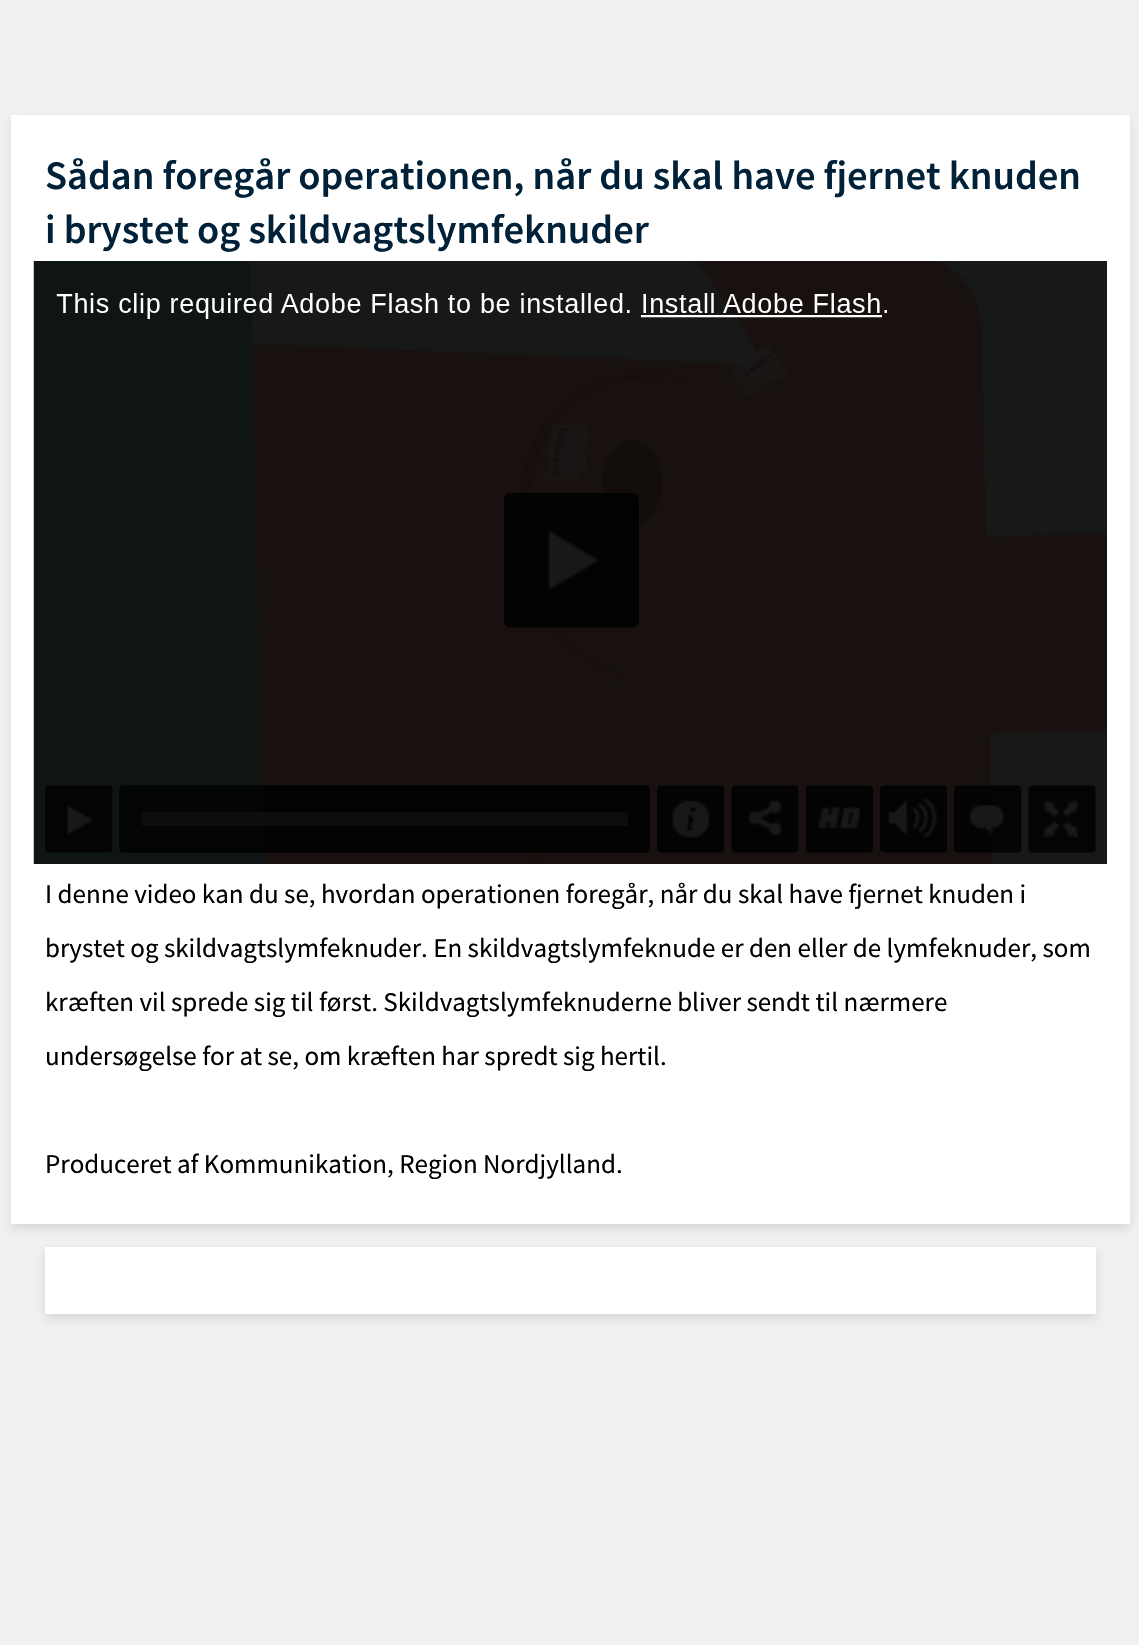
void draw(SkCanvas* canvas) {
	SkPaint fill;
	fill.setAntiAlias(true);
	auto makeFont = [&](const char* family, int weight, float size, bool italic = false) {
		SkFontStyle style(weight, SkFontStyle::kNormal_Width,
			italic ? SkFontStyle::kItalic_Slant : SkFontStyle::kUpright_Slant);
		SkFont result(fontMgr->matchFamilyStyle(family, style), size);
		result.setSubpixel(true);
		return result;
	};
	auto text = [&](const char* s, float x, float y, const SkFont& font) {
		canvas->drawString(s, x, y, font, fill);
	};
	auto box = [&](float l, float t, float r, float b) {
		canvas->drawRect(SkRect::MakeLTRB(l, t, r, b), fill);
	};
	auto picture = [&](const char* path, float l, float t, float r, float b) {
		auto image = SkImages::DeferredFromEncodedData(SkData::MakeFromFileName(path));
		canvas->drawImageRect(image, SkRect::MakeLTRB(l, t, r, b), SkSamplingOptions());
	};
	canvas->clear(0xFFF1F1F1);
	fill.setColor(0x1A000000);
	fill.setMaskFilter(SkMaskFilter::MakeBlur(kNormal_SkBlurStyle, 4.5f));
	canvas->drawRect(SkRect::MakeLTRB(11, 119, 1130, 1229), fill);
	fill.setMaskFilter(nullptr);
	fill.setColor(0xFFFFFFFF);
	box(11, 115, 1130, 1224);
	picture("image0.png", 33, 261, 1107, 864);
	fill.setColor(0x1A000000);
	fill.setMaskFilter(SkMaskFilter::MakeBlur(kNormal_SkBlurStyle, 4.5f));
	canvas->drawRect(SkRect::MakeLTRB(45, 1251, 1096, 1319), fill);
	fill.setMaskFilter(nullptr);
	fill.setColor(0xFFFFFFFF);
	box(45, 1247, 1096, 1314);
	auto font1 = makeFont("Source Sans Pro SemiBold", 600, 40.5f);
	fill.setColor(0xFF002138);
	text("Sådan foregår operationen, når du skal have fjernet knuden", 45, 189, font1);
	text("i brystet og skildvagtslymfeknuder", 45, 243, font1);
	auto font2 = makeFont("Source Sans Pro", 400, 27);
	fill.setColor(0xFF000000);
	text("I denne video kan du se, hvordan operationen foregår, når du skal have fjernet knuden i", 45, 903, font2);
	text("brystet og skildvagtslymfeknuder. En skildvagtslymfeknude er den eller de lymfeknuder, som", 45, 957, font2);
	text("kræften vil sprede sig til først. Skildvagtslymfeknuderne bliver sendt til nærmere", 45, 1011, font2);
	text("undersøgelse for at se, om kræften har spredt sig hertil.", 45, 1065, font2);
	text("Produceret af Kommunikation, Region Nordjylland.", 45, 1173, font2);
}
